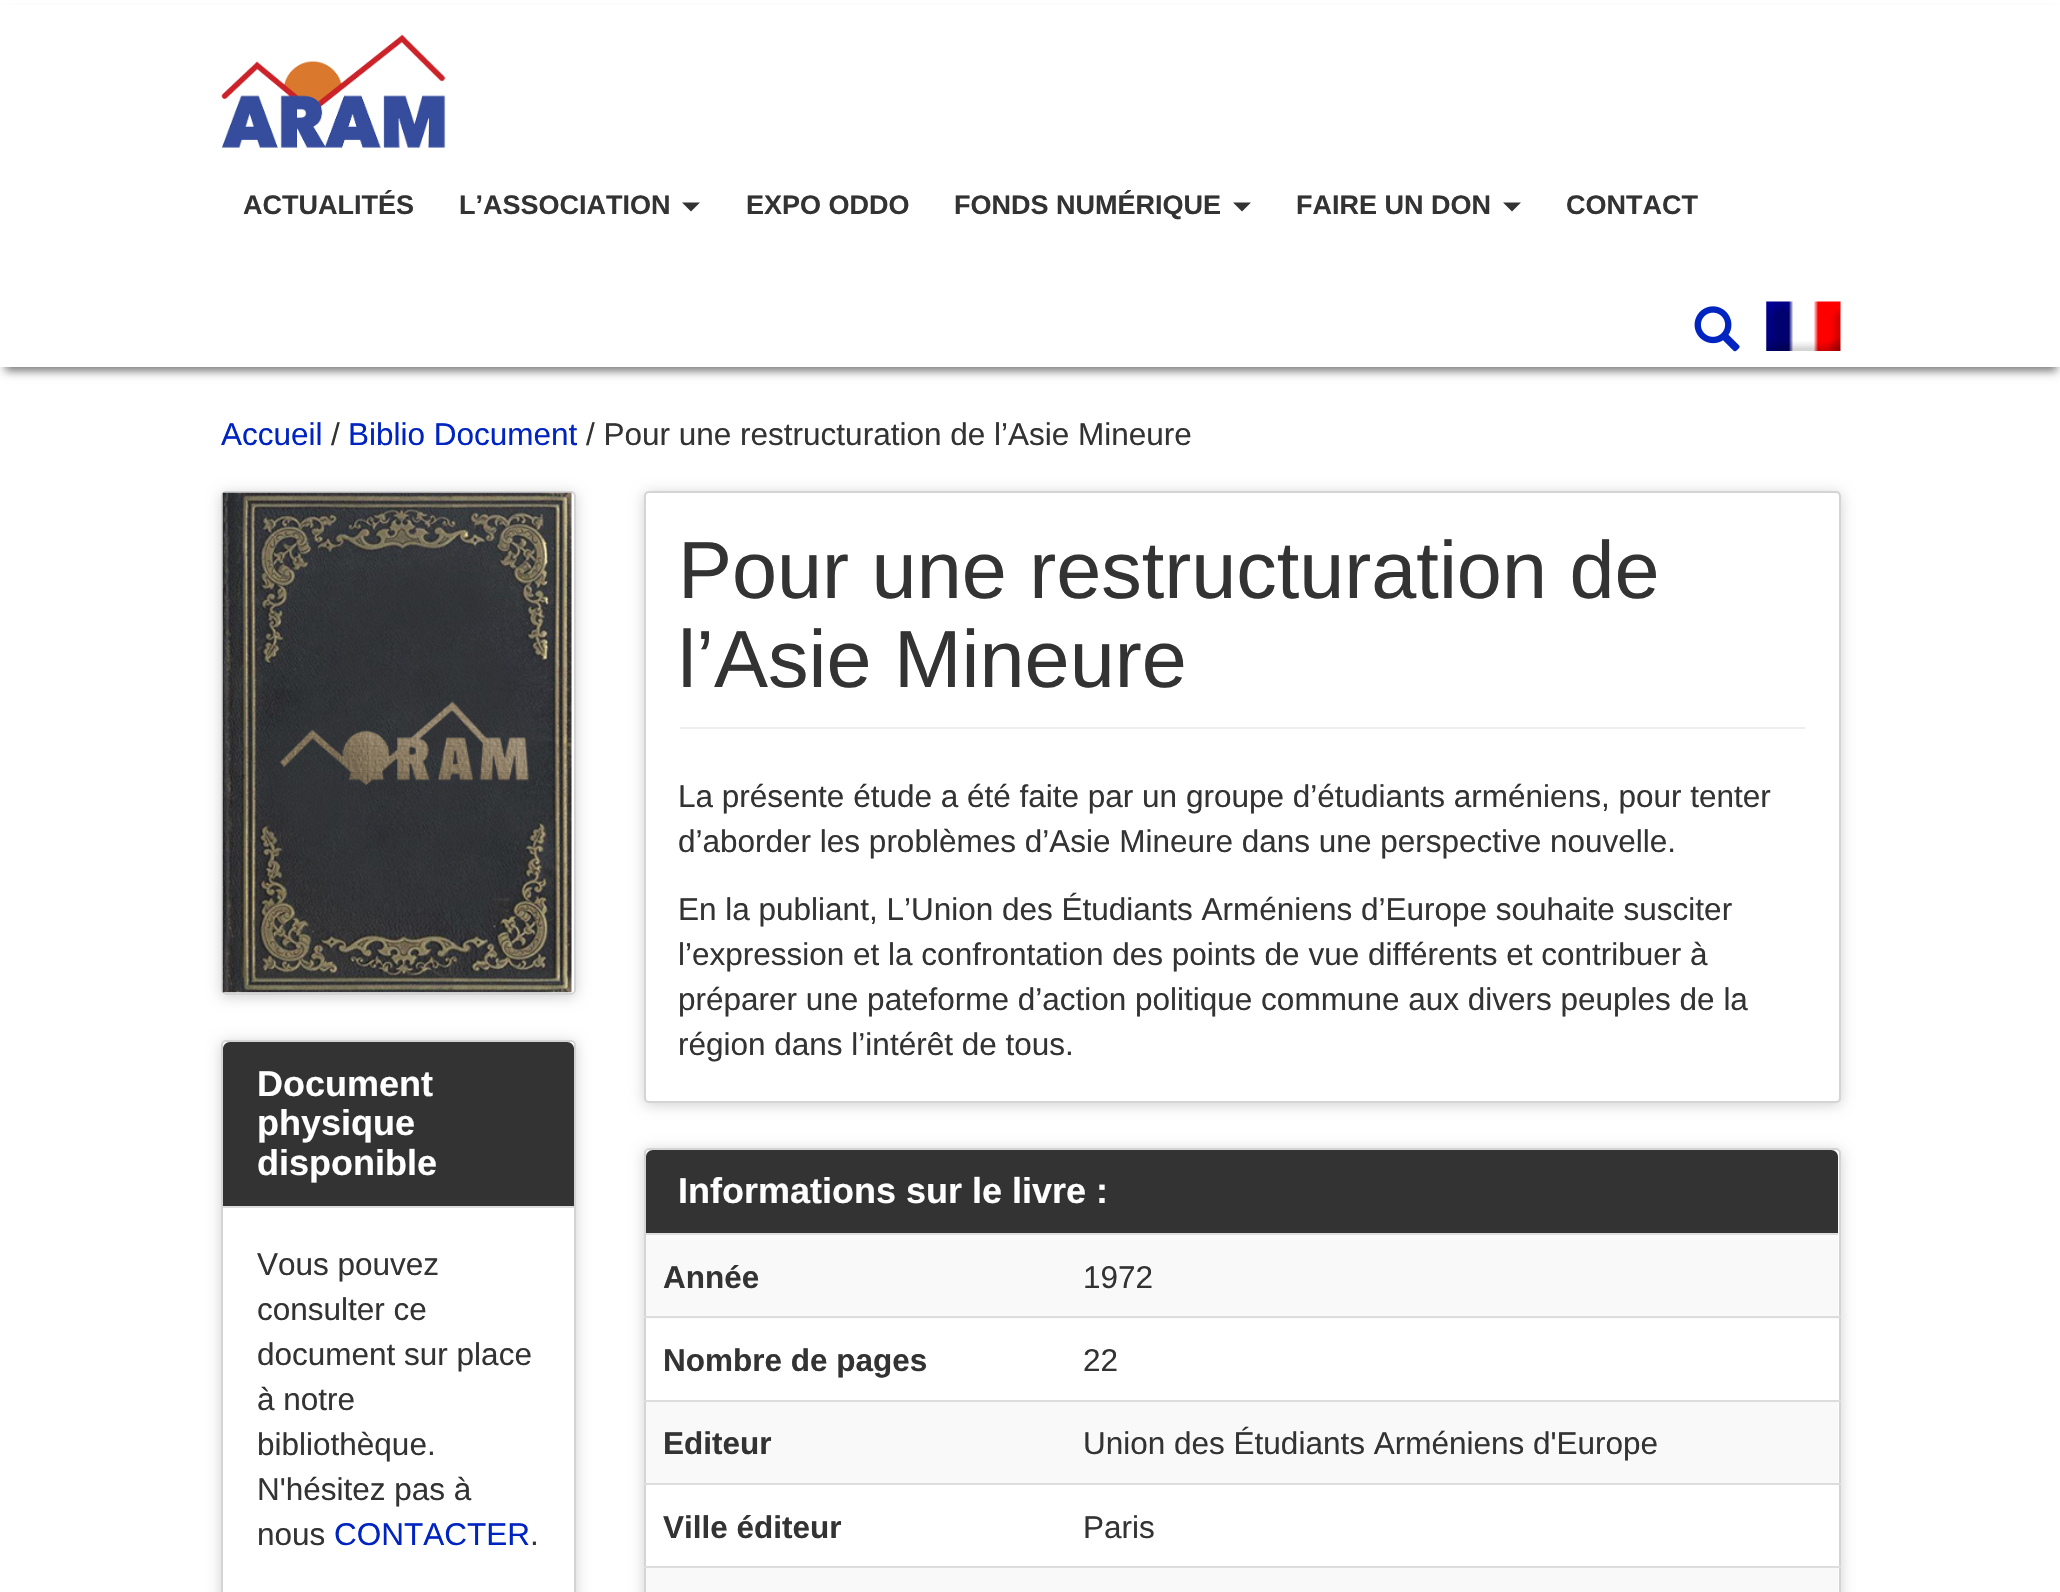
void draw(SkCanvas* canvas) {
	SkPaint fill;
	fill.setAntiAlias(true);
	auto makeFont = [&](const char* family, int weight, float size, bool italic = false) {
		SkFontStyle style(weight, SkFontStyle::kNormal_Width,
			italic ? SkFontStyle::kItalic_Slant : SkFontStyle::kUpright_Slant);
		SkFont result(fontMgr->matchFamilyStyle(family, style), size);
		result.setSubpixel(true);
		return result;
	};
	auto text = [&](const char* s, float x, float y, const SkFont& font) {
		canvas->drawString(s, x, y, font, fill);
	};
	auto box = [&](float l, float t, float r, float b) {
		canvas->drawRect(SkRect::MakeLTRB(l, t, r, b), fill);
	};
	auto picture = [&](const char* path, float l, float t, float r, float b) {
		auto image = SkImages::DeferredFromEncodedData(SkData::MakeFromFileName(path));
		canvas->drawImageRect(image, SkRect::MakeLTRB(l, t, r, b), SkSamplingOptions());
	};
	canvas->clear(0xFFFFFFFF);
	fill.setColor(0xFF777777);
	fill.setMaskFilter(SkMaskFilter::MakeBlur(kNormal_SkBlurStyle, 4.5f));
	canvas->drawRect(SkRect::MakeLTRB(5, 14, 2057, 371), fill);
	fill.setMaskFilter(nullptr);
	fill.setColor(0xFFFFFFFF);
	box(0, 5, 2060, 367);
	picture("image0.png", 221, 34, 446, 148);
	fill.setColor(0xFF333333);
	canvas->drawPath(SkPathBuilder().moveTo(682, 202.5f).lineTo(700, 202.5f).lineTo(691, 211.5f).close().detach(), fill);
	canvas->drawPath(SkPathBuilder().moveTo(1233, 202.5f).lineTo(1251, 202.5f).lineTo(1242, 211.5f).close().detach(), fill);
	canvas->drawPath(SkPathBuilder().moveTo(1503, 202.5f).lineTo(1521, 202.5f).lineTo(1512, 211.5f).close().detach(), fill);
	picture("image1.png", 1694, 306, 1740, 352);
	picture("image2.png", 1766, 301, 1841, 351);
	canvas->save();
	canvas->clipPath(SkPathBuilder(SkPathFillType::kEvenOdd).moveTo(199, 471).lineTo(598, 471).lineTo(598, 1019).lineTo(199, 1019).close().moveTo(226, 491).lineTo(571, 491).cubicTo(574, 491, 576, 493, 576, 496).lineTo(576, 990).cubicTo(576, 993, 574, 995, 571, 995).lineTo(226, 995).cubicTo(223, 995, 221, 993, 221, 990).lineTo(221, 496).cubicTo(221, 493, 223, 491, 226, 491).close().detach(), true);
	fill.setColor(0x2E000000);
	fill.setMaskFilter(SkMaskFilter::MakeBlur(kNormal_SkBlurStyle, 7));
	canvas->drawRoundRect(SkRect::MakeLTRB(221, 493, 576, 997), 5, 5, fill);
	fill.setMaskFilter(nullptr);
	canvas->restore();
	fill.setStyle(SkPaint::kStroke_Style);
	fill.setStrokeWidth(2);
	fill.setColor(0xFFD4D4D4);
	canvas->drawRoundRect(SkRect::MakeLTRB(222, 492, 575, 994), 4, 4, fill);
	picture("image3.png", 222, 492, 572, 993);
	canvas->save();
	canvas->clipPath(SkPathBuilder(SkPathFillType::kEvenOdd).moveTo(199, 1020).lineTo(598, 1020).lineTo(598, 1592).lineTo(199, 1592).close().moveTo(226, 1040).lineTo(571, 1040).cubicTo(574, 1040, 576, 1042, 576, 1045).lineTo(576, 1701).cubicTo(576, 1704, 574, 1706, 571, 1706).lineTo(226, 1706).cubicTo(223, 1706, 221, 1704, 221, 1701).lineTo(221, 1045).cubicTo(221, 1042, 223, 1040, 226, 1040).close().detach(), true);
	fill.setStyle(SkPaint::kFill_Style);
	fill.setColor(0x2E000000);
	fill.setMaskFilter(SkMaskFilter::MakeBlur(kNormal_SkBlurStyle, 7));
	canvas->drawRoundRect(SkRect::MakeLTRB(221, 1042, 576, 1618), 5, 5, fill);
	fill.setMaskFilter(nullptr);
	canvas->restore();
	fill.setStyle(SkPaint::kStroke_Style);
	fill.setColor(0xFFD4D4D4);
	canvas->drawRoundRect(SkRect::MakeLTRB(222, 1041, 575, 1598), 4, 4, fill);
	fill.setStyle(SkPaint::kFill_Style);
	fill.setColor(0xFF333333);
	canvas->drawPath(SkPathBuilder().moveTo(230, 1042).lineTo(567, 1042).cubicTo(571, 1042, 574, 1045, 574, 1049).lineTo(574, 1208).lineTo(223, 1208).lineTo(223, 1049).cubicTo(223, 1045, 226, 1042, 230, 1042).close().detach(), fill);
	fill.setColor(0xFFDDDDDD);
	box(223, 1206, 574, 1208);
	fill.setColor(0x2E000000);
	fill.setMaskFilter(SkMaskFilter::MakeBlur(kNormal_SkBlurStyle, 7));
	canvas->drawRoundRect(SkRect::MakeLTRB(644, 493, 1841, 1105), 5, 5, fill);
	fill.setMaskFilter(nullptr);
	fill.setColor(0xFFFFFFFF);
	canvas->drawRoundRect(SkRect::MakeLTRB(645, 492, 1840, 1102), 4, 4, fill);
	fill.setStyle(SkPaint::kStroke_Style);
	fill.setColor(0xFFD4D4D4);
	canvas->drawRoundRect(SkRect::MakeLTRB(645, 492, 1840, 1102), 4, 4, fill);
	fill.setStyle(SkPaint::kFill_Style);
	fill.setColor(0xFFEEEEEE);
	box(680, 727, 1805, 729);
	fill.setColor(0x2E000000);
	fill.setMaskFilter(SkMaskFilter::MakeBlur(kNormal_SkBlurStyle, 7));
	canvas->drawRoundRect(SkRect::MakeLTRB(644, 1150, 1841, 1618), 5, 5, fill);
	fill.setMaskFilter(nullptr);
	fill.setColor(0xFFFFFFFF);
	canvas->drawRoundRect(SkRect::MakeLTRB(645, 1149, 1840, 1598), 4, 4, fill);
	fill.setStyle(SkPaint::kStroke_Style);
	fill.setColor(0xFFD4D4D4);
	canvas->drawRoundRect(SkRect::MakeLTRB(645, 1149, 1840, 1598), 4, 4, fill);
	fill.setStyle(SkPaint::kFill_Style);
	fill.setColor(0xFF333333);
	canvas->drawPath(SkPathBuilder().moveTo(653, 1150).lineTo(1831, 1150).cubicTo(1835, 1150, 1838, 1153, 1838, 1157).lineTo(1838, 1235).lineTo(646, 1235).lineTo(646, 1157).cubicTo(646, 1153, 649, 1150, 653, 1150).close().detach(), fill);
	fill.setColor(0xFFDDDDDD);
	box(646, 1233, 1838, 1235);
	fill.setColor(0xFFF9F9F9);
	box(646, 1235, 1838, 1319);
	fill.setColor(0xFFDDDDDD);
	box(644, 1316, 1841, 1318);
	fill.setColor(0xFFF9F9F9);
	box(646, 1402, 1838, 1483);
	fill.setColor(0xFFDDDDDD);
	box(644, 1400, 1841, 1402);
	box(644, 1483, 1841, 1485);
	fill.setColor(0xFFF9F9F9);
	box(646, 1568, 1838, 1592);
	fill.setColor(0xFFDDDDDD);
	box(644, 1566, 1841, 1568);
	auto font1 = makeFont("Liberation Sans", 700, 27);
	fill.setColor(0xFF333333);
	text("ACTUALITÉS", 243, 214, font1);
	text("L’ASSOCIATION", 459, 214, font1);
	text("EXPO ODDO", 746, 214, font1);
	text("FONDS NUMÉRIQUE", 954, 214, font1);
	text("FAIRE UN DON", 1296, 214, font1);
	text("CONTACT", 1566, 214, font1);
	auto font2 = makeFont("Liberation Sans", 400, 31.5f);
	fill.setColor(0xFF0024C0);
	text("Accueil", 221, 445, font2);
	fill.setColor(0xFF333333);
	text("/", 331, 445, font2);
	fill.setColor(0xFF0024C0);
	text("Biblio Document", 348, 445, font2);
	fill.setColor(0xFF333333);
	text("/ Pour une restructuration de l’Asie Mineure", 586, 445, font2);
	auto font3 = makeFont("Liberation Sans", 700, 36);
	fill.setColor(0xFFFFFFFF);
	text("Document", 257, 1096, font3);
	text("physique", 257, 1135, font3);
	text("disponible", 257, 1175, font3);
	fill.setColor(0xFF333333);
	text("Vous pouvez", 257, 1275, font2);
	text("consulter ce", 257, 1320, font2);
	text("document sur place", 257, 1365, font2);
	text("à notre", 257, 1410, font2);
	text("bibliothèque.", 257, 1455, font2);
	text("N'hésitez pas à", 257, 1500, font2);
	text("nous", 257, 1545, font2);
	fill.setColor(0xFF0024C0);
	text("CONTACTER", 334, 1545, font2);
	fill.setColor(0xFF333333);
	text(".", 530, 1545, font2);
	auto font4 = makeFont("Liberation Sans", 400, 81);
	text("Pour une restructuration de", 678, 598, font4);
	text("l’Asie Mineure", 678, 687, font4);
	text("La présente étude a été faite par un groupe d’étudiants arméniens, pour tenter", 678, 807, font2);
	text("d’aborder les problèmes d’Asie Mineure dans une perspective nouvelle.", 678, 852, font2);
	text("En la publiant, L’Union des Étudiants Arméniens d’Europe souhaite susciter", 678, 920, font2);
	text("l’expression et la confrontation des points de vue différents et contribuer à", 678, 965, font2);
	text("préparer une pateforme d’action politique commune aux divers peuples de la", 678, 1010, font2);
	text("région dans l’intérêt de tous.", 678, 1055, font2);
	fill.setColor(0xFFFFFFFF);
	text("Informations sur le livre :", 678, 1203, font3);
	auto font5 = makeFont("Liberation Sans", 700, 31.5f);
	fill.setColor(0xFF333333);
	text("Année", 663, 1288, font5);
	text("1972", 1083, 1288, font2);
	text("Nombre de pages", 663, 1371, font5);
	text("22", 1083, 1371, font2);
	text("Editeur", 663, 1454, font5);
	text("Union des Étudiants Arméniens d'Europe", 1083, 1454, font2);
	text("Ville éditeur", 663, 1538, font5);
	text("Paris", 1083, 1538, font2);
}
